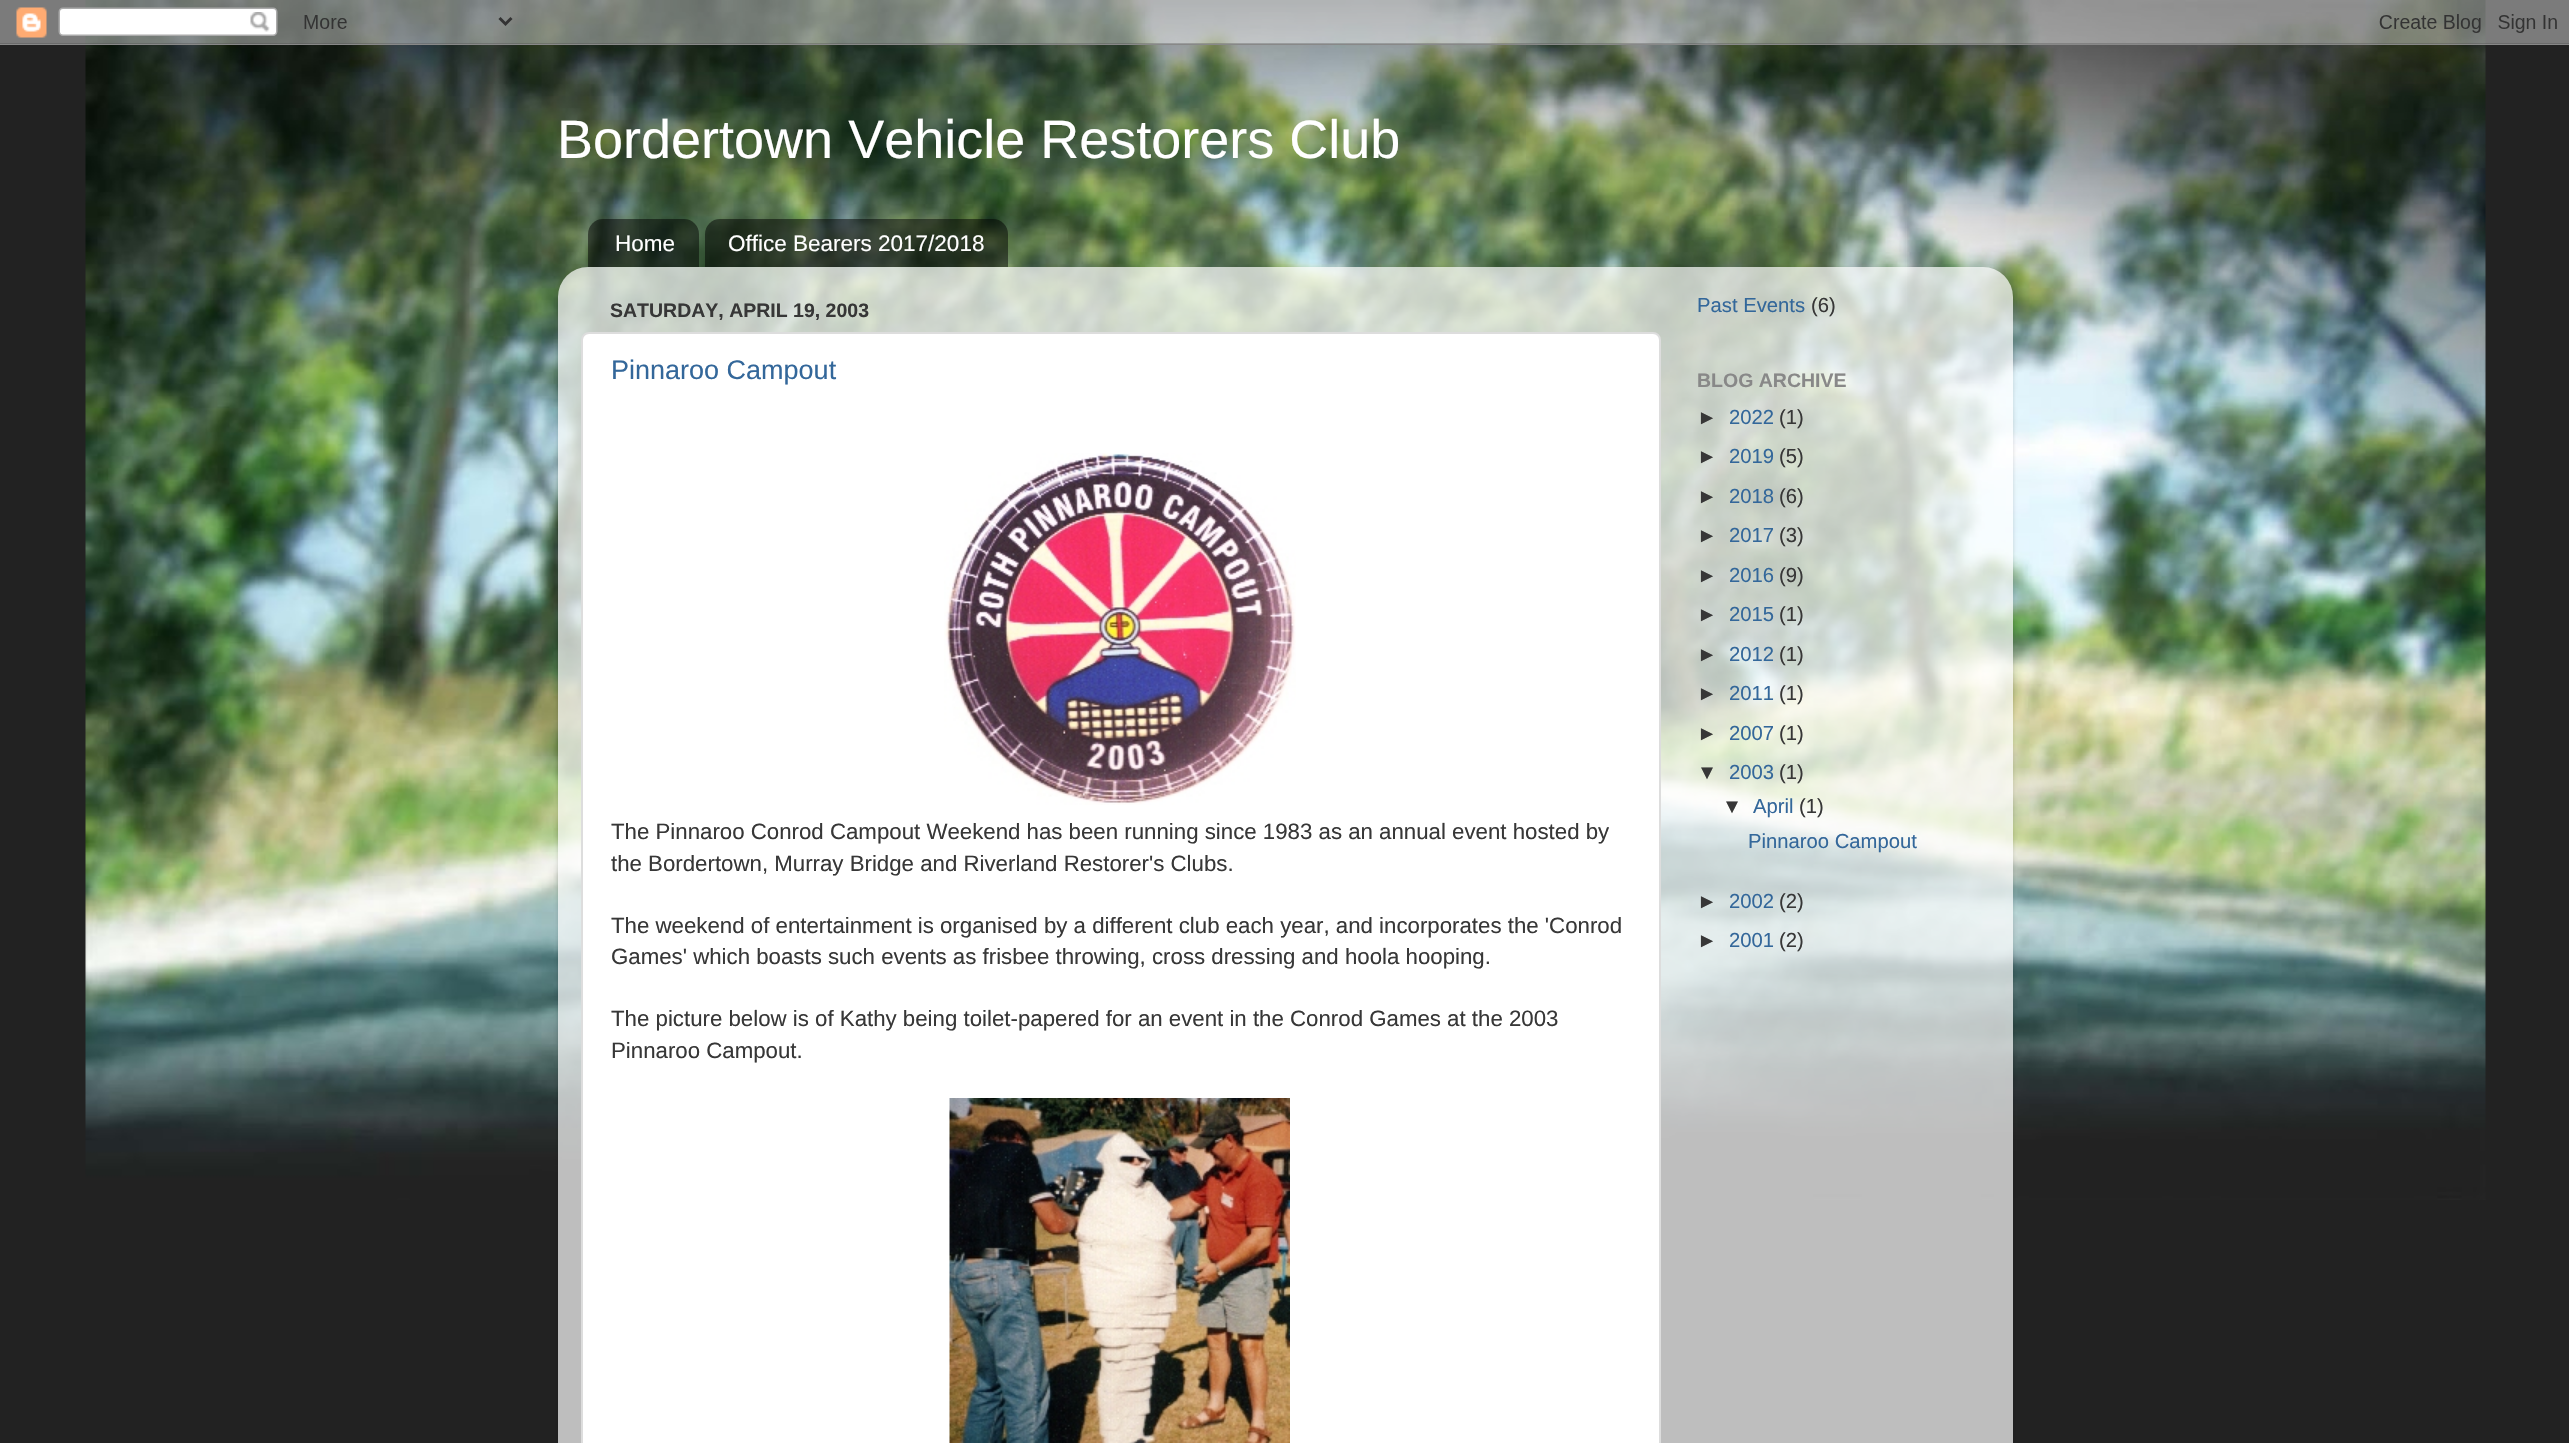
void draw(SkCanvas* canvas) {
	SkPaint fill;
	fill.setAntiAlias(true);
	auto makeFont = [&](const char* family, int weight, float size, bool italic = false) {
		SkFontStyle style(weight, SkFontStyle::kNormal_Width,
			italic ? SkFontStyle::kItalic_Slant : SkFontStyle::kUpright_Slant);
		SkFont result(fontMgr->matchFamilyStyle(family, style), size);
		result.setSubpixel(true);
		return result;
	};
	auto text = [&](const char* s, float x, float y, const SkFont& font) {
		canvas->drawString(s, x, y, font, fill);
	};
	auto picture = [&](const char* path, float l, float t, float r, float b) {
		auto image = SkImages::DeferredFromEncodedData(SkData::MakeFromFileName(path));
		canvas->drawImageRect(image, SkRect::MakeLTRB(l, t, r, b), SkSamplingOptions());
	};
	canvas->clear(0xFF222222);
	picture("image0.png", 85, 0, 2486, 1200);
	picture("image1.png", 0, 0, 2569, 45);
	picture("image2.png", 588, 219, 699, 267);
	picture("image3.png", 705, 219, 1008, 267);
	canvas->save();
	canvas->clipPath(SkPathBuilder(SkPathFillType::kEvenOdd).moveTo(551, 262).lineTo(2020, 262).lineTo(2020, 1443).lineTo(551, 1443).close().moveTo(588, 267).lineTo(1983, 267).cubicTo(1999.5f, 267, 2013, 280.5f, 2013, 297).lineTo(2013, 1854).lineTo(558, 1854).lineTo(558, 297).cubicTo(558, 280.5f, 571.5f, 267, 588, 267).close().detach(), true);
	fill.setColor(0x26000000);
	fill.setMaskFilter(SkMaskFilter::MakeBlur(kNormal_SkBlurStyle, 2));
	canvas->drawRoundRect(SkRect::MakeLTRB(558, 269, 2013, 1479), 30, 30, fill);
	fill.setMaskFilter(nullptr);
	canvas->restore();
	picture("image4.png", 558, 267, 2013, 1443);
	fill.setColor(0xFFFFFFFF);
	canvas->drawRoundRect(SkRect::MakeLTRB(582, 333, 1660, 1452), 7, 7, fill);
	fill.setStyle(SkPaint::kStroke_Style);
	fill.setStrokeWidth(2);
	fill.setColor(0xFFDDDDDD);
	canvas->drawRoundRect(SkRect::MakeLTRB(582, 333, 1660, 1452), 7, 7, fill);
	picture("image5.png", 944, 453, 1296, 805);
	picture("image6.png", 949, 1098, 1290, 1443);
	auto font1 = makeFont("Liberation Sans", 400, 54);
	fill.setStyle(SkPaint::kFill_Style);
	fill.setColor(0xFFFFFFFF);
	text("Bordertown Vehicle Restorers Club", 557, 158, font1);
	auto font2 = makeFont("Liberation Sans", 400, 22.5f);
	text("Home", 615, 251, font2);
	text("Office Bearers 2017/2018", 728, 251, font2);
	auto font3 = makeFont("Liberation Sans", 700, 19.5f);
	fill.setColor(0xFF373737);
	text("SATURDAY, APRIL 19, 2003", 610, 317, font3);
	auto font4 = makeFont("Liberation Sans", 400, 27);
	fill.setColor(0xFF33679A);
	text("Pinnaroo Campout", 611, 379, font4);
	auto font5 = makeFont("Liberation Sans", 400, 22.25f);
	fill.setColor(0xFF373737);
	text("The Pinnaroo Conrod Campout Weekend has been running since 1983 as an annual event hosted by", 611, 839, font5);
	text("the Bordertown, Murray Bridge and Riverland Restorer's Clubs.", 611, 871, font5);
	text("The weekend of entertainment is organised by a different club each year, and incorporates the 'Conrod", 611, 933, font5);
	text("Games' which boasts such events as frisbee throwing, cross dressing and hoola hooping.", 611, 964, font5);
	text("The picture below is of Kathy being toilet-papered for an event in the Conrod Games at the 2003", 611, 1026, font5);
	text("Pinnaroo Campout.", 611, 1058, font5);
	auto font6 = makeFont("Liberation Sans", 400, 20.25f);
	fill.setColor(0xFF33679A);
	text("Past Events", 1697, 312, font6);
	fill.setColor(0xFF373737);
	text("(6)", 1811, 312, font6);
	fill.setColor(0xFF888888);
	text("BLOG ARCHIVE", 1697, 387, font3);
	fill.setColor(0xFF373737);
	text("►", 1697, 424, font6);
	fill.setColor(0xFF33679A);
	text("2022", 1729, 424, font6);
	fill.setColor(0xFF373737);
	text("(1)", 1779, 424, font6);
	text("►", 1697, 463, font6);
	fill.setColor(0xFF33679A);
	text("2019", 1729, 463, font6);
	fill.setColor(0xFF373737);
	text("(5)", 1779, 463, font6);
	text("►", 1697, 503, font6);
	fill.setColor(0xFF33679A);
	text("2018", 1729, 503, font6);
	fill.setColor(0xFF373737);
	text("(6)", 1779, 503, font6);
	text("►", 1697, 542, font6);
	fill.setColor(0xFF33679A);
	text("2017", 1729, 542, font6);
	fill.setColor(0xFF373737);
	text("(3)", 1779, 542, font6);
	text("►", 1697, 582, font6);
	fill.setColor(0xFF33679A);
	text("2016", 1729, 582, font6);
	fill.setColor(0xFF373737);
	text("(9)", 1779, 582, font6);
	text("►", 1697, 621, font6);
	fill.setColor(0xFF33679A);
	text("2015", 1729, 621, font6);
	fill.setColor(0xFF373737);
	text("(1)", 1779, 621, font6);
	text("►", 1697, 661, font6);
	fill.setColor(0xFF33679A);
	text("2012", 1729, 661, font6);
	fill.setColor(0xFF373737);
	text("(1)", 1779, 661, font6);
	text("►", 1697, 700, font6);
	fill.setColor(0xFF33679A);
	text("2011", 1729, 700, font6);
	fill.setColor(0xFF373737);
	text("(1)", 1779, 700, font6);
	text("►", 1697, 740, font6);
	fill.setColor(0xFF33679A);
	text("2007", 1729, 740, font6);
	fill.setColor(0xFF373737);
	text("(1)", 1779, 740, font6);
	text("▼", 1697, 779, font6);
	fill.setColor(0xFF33679A);
	text("2003", 1729, 779, font6);
	fill.setColor(0xFF373737);
	text("(1)", 1779, 779, font6);
	text("▼", 1722, 813, font6);
	fill.setColor(0xFF33679A);
	text("April", 1753, 813, font6);
	fill.setColor(0xFF373737);
	text("(1)", 1799, 813, font6);
	fill.setColor(0xFF33679A);
	text("Pinnaroo Campout", 1748, 848, font6);
	fill.setColor(0xFF373737);
	text("►", 1697, 908, font6);
	fill.setColor(0xFF33679A);
	text("2002", 1729, 908, font6);
	fill.setColor(0xFF373737);
	text("(2)", 1779, 908, font6);
	text("►", 1697, 947, font6);
	fill.setColor(0xFF33679A);
	text("2001", 1729, 947, font6);
	fill.setColor(0xFF373737);
	text("(2)", 1779, 947, font6);
}
